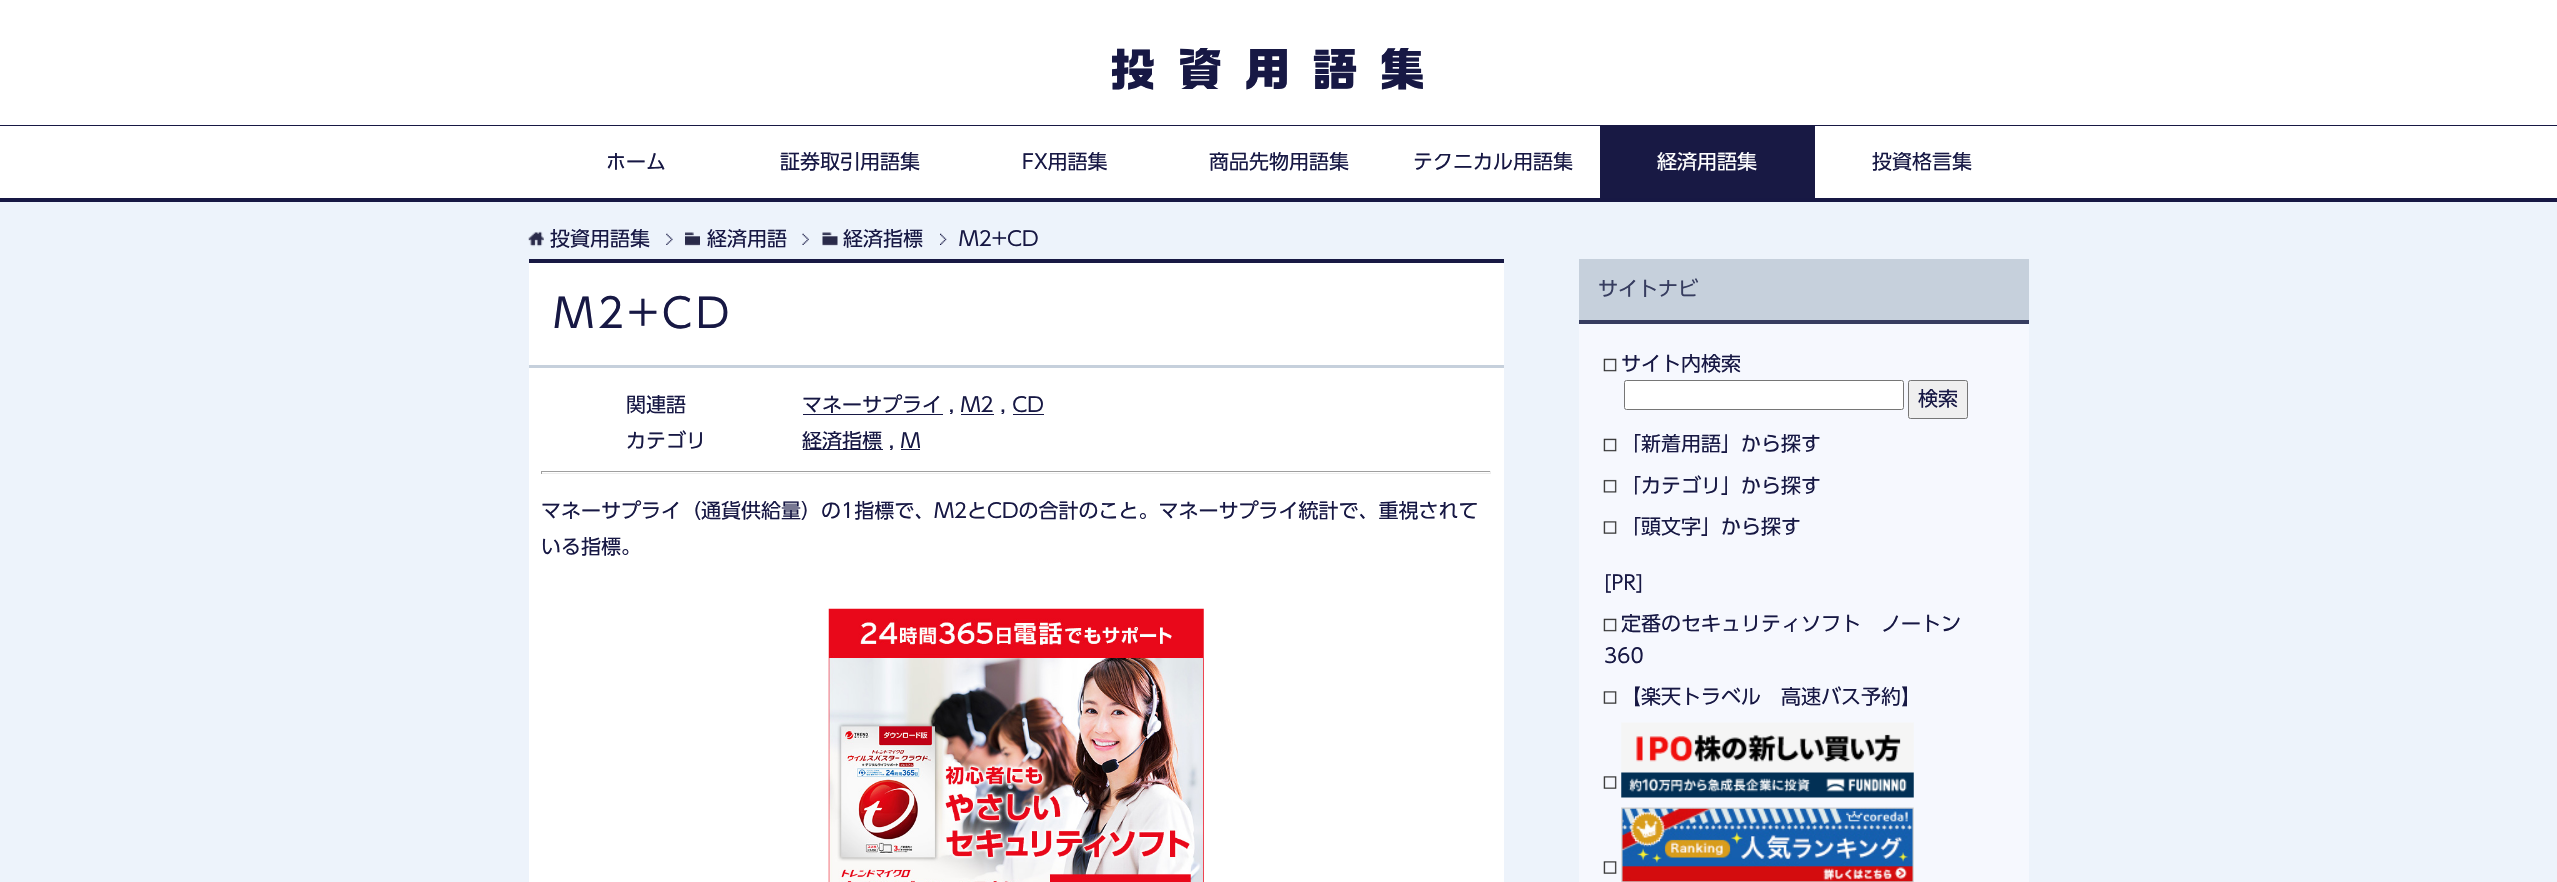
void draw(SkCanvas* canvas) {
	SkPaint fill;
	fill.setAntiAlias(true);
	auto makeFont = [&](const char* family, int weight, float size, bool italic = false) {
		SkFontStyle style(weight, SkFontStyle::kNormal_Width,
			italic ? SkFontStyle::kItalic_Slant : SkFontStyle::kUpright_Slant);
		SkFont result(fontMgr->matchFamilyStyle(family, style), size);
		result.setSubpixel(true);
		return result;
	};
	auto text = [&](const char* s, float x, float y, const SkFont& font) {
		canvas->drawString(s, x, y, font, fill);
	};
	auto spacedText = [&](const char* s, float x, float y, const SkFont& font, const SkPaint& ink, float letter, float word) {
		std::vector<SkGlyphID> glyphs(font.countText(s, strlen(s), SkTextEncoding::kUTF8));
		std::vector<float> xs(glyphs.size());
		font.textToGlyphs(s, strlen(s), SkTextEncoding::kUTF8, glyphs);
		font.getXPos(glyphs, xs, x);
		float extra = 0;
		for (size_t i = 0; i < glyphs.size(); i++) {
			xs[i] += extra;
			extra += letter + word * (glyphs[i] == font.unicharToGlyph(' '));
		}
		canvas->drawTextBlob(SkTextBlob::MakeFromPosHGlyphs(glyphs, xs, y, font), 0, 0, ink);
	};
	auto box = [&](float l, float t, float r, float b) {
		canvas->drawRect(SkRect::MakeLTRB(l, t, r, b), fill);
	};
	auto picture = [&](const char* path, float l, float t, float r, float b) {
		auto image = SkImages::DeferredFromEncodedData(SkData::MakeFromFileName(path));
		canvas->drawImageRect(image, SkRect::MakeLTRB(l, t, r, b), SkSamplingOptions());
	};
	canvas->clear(0xFFEDF3FB);
	fill.setColor(0xFFFFFFFF);
	box(0, 0, 2557, 198);
	fill.setColor(0xFF171844);
	box(0, 125, 2557, 126);
	box(0, 198, 2557, 202);
	fill.setColor(0xFF181944);
	box(1600, 126, 1815, 198);
	picture("image0.png", 666, 233, 673, 245);
	picture("image1.png", 528, 231, 544, 247);
	picture("image2.png", 802, 233, 809, 245);
	picture("image3.png", 685, 232, 700, 246);
	picture("image4.png", 940, 233, 947, 245);
	picture("image5.png", 822, 232, 838, 246);
	fill.setColor(0xFFFFFFFF);
	box(529, 263, 1504, 882);
	fill.setColor(0xFF181944);
	box(529, 259, 1504, 263);
	fill.setColor(0xFFC6D0DC);
	box(529, 365, 1504, 368);
	fill.setColor(0xFF171844);
	box(803, 414, 943, 415);
	box(961, 414, 994, 415);
	box(1013, 414, 1044, 415);
	box(803, 449, 883, 450);
	box(901, 449, 920, 450);
	fill.setColor(0xFF9F9F9F);
	box(541, 471, 1491, 472);
	fill.setColor(0xFFEEEEEE);
	box(1490, 471, 1491, 474);
	box(541, 473, 1491, 474);
	fill.setColor(0xFF9F9F9F);
	box(541, 471, 542, 474);
	picture("image6.png", 828, 608, 1204, 882);
	fill.setColor(0xFFF6F8FE);
	box(1579, 324, 2029, 882);
	fill.setColor(0xFFC6D0DC);
	box(1579, 259, 2029, 320);
	fill.setColor(0xFF373D60);
	box(1579, 320, 2029, 324);
	picture("image7.png", 1603, 358, 1617, 372);
	fill.setColor(0xFFFFFFFF);
	canvas->drawRoundRect(SkRect::MakeLTRB(1624.5f, 380.5f, 1903.5f, 409.5f), 2, 2, fill);
	fill.setStyle(SkPaint::kStroke_Style);
	fill.setStrokeWidth(1);
	fill.setColor(0xFF767676);
	canvas->drawRoundRect(SkRect::MakeLTRB(1624.5f, 380.5f, 1903.5f, 409.5f), 2, 2, fill);
	fill.setStyle(SkPaint::kFill_Style);
	fill.setColor(0xFFEFEFEF);
	canvas->drawRoundRect(SkRect::MakeLTRB(1908.5f, 380.5f, 1967.5f, 418.5f), 2, 2, fill);
	fill.setStyle(SkPaint::kStroke_Style);
	fill.setColor(0xFF767676);
	canvas->drawRoundRect(SkRect::MakeLTRB(1908.5f, 380.5f, 1967.5f, 418.5f), 2, 2, fill);
	picture("image7.png", 1603, 438, 1617, 452);
	picture("image8.png", 1603, 479, 1617, 493);
	picture("image9.png", 1603, 521, 1617, 534);
	picture("image7.png", 1603, 618, 1617, 632);
	picture("image9.png", 1603, 691, 1617, 704);
	picture("image10.png", 1603, 776, 1617, 789);
	picture("image11.png", 1621, 722, 1914, 798);
	picture("image9.png", 1603, 861, 1617, 874);
	picture("image12.png", 1621, 807, 1914, 882);
	auto font1 = makeFont("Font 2", 400, 45);
	fill.setStyle(SkPaint::kFill_Style);
	fill.setColor(0xFF171844);
	spacedText("投資用語集", 1110, 86, font1, fill, 22.5f, 0);
	auto font2 = makeFont("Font", 400, 20);
	text("ホーム", 606, 169, font2);
	text("証券取引用語集", 780, 169, font2);
	text("FX用語集", 1022, 169, font2);
	text("商品先物用語集", 1209, 169, font2);
	text("テクニカル用語集", 1413, 169, font2);
	fill.setColor(0xFFFFFFFF);
	text("経済用語集", 1657, 169, font2);
	fill.setColor(0xFF171844);
	text("投資格言集", 1872, 169, font2);
	text("投資用語集", 550, 246, font2);
	text("経済用語", 707, 246, font2);
	text("経済指標", 843, 246, font2);
	text("M2+CD", 959, 246, font2);
	auto font3 = makeFont("Font", 400, 40);
	spacedText("M2+CD", 554, 328, font3, fill, 4, 0);
	text("関連語", 626, 412, font2);
	text("マネーサプライ , M2 , CD", 802, 412, font2);
	text("カテゴリ", 626, 448, font2);
	text("経済指標 , M", 802, 448, font2);
	text("マネーサプライ（通貨供給量）の1指標で、M2とCDの合計のこと。マネーサプライ統計で、重視されて", 541, 518, font2);
	text("いる指標。", 541, 554, font2);
	fill.setColor(0xFF373D60);
	text("サイトナビ", 1598, 296, font2);
	fill.setColor(0xFF171844);
	text("サイト内検索", 1621, 371, font2);
	text("検索", 1918, 406, font2);
	text("「新着用語」から探す", 1621, 451, font2);
	text("「カテゴリ」から探す", 1621, 493, font2);
	text("「頭文字」から探す", 1621, 534, font2);
	text("[PR]", 1604, 590, font2);
	text("定番のセキュリティソフト　ノートン", 1621, 631, font2);
	text("360", 1604, 663, font2);
	text("【楽天トラベル　高速バス予約】", 1621, 704, font2);
}
